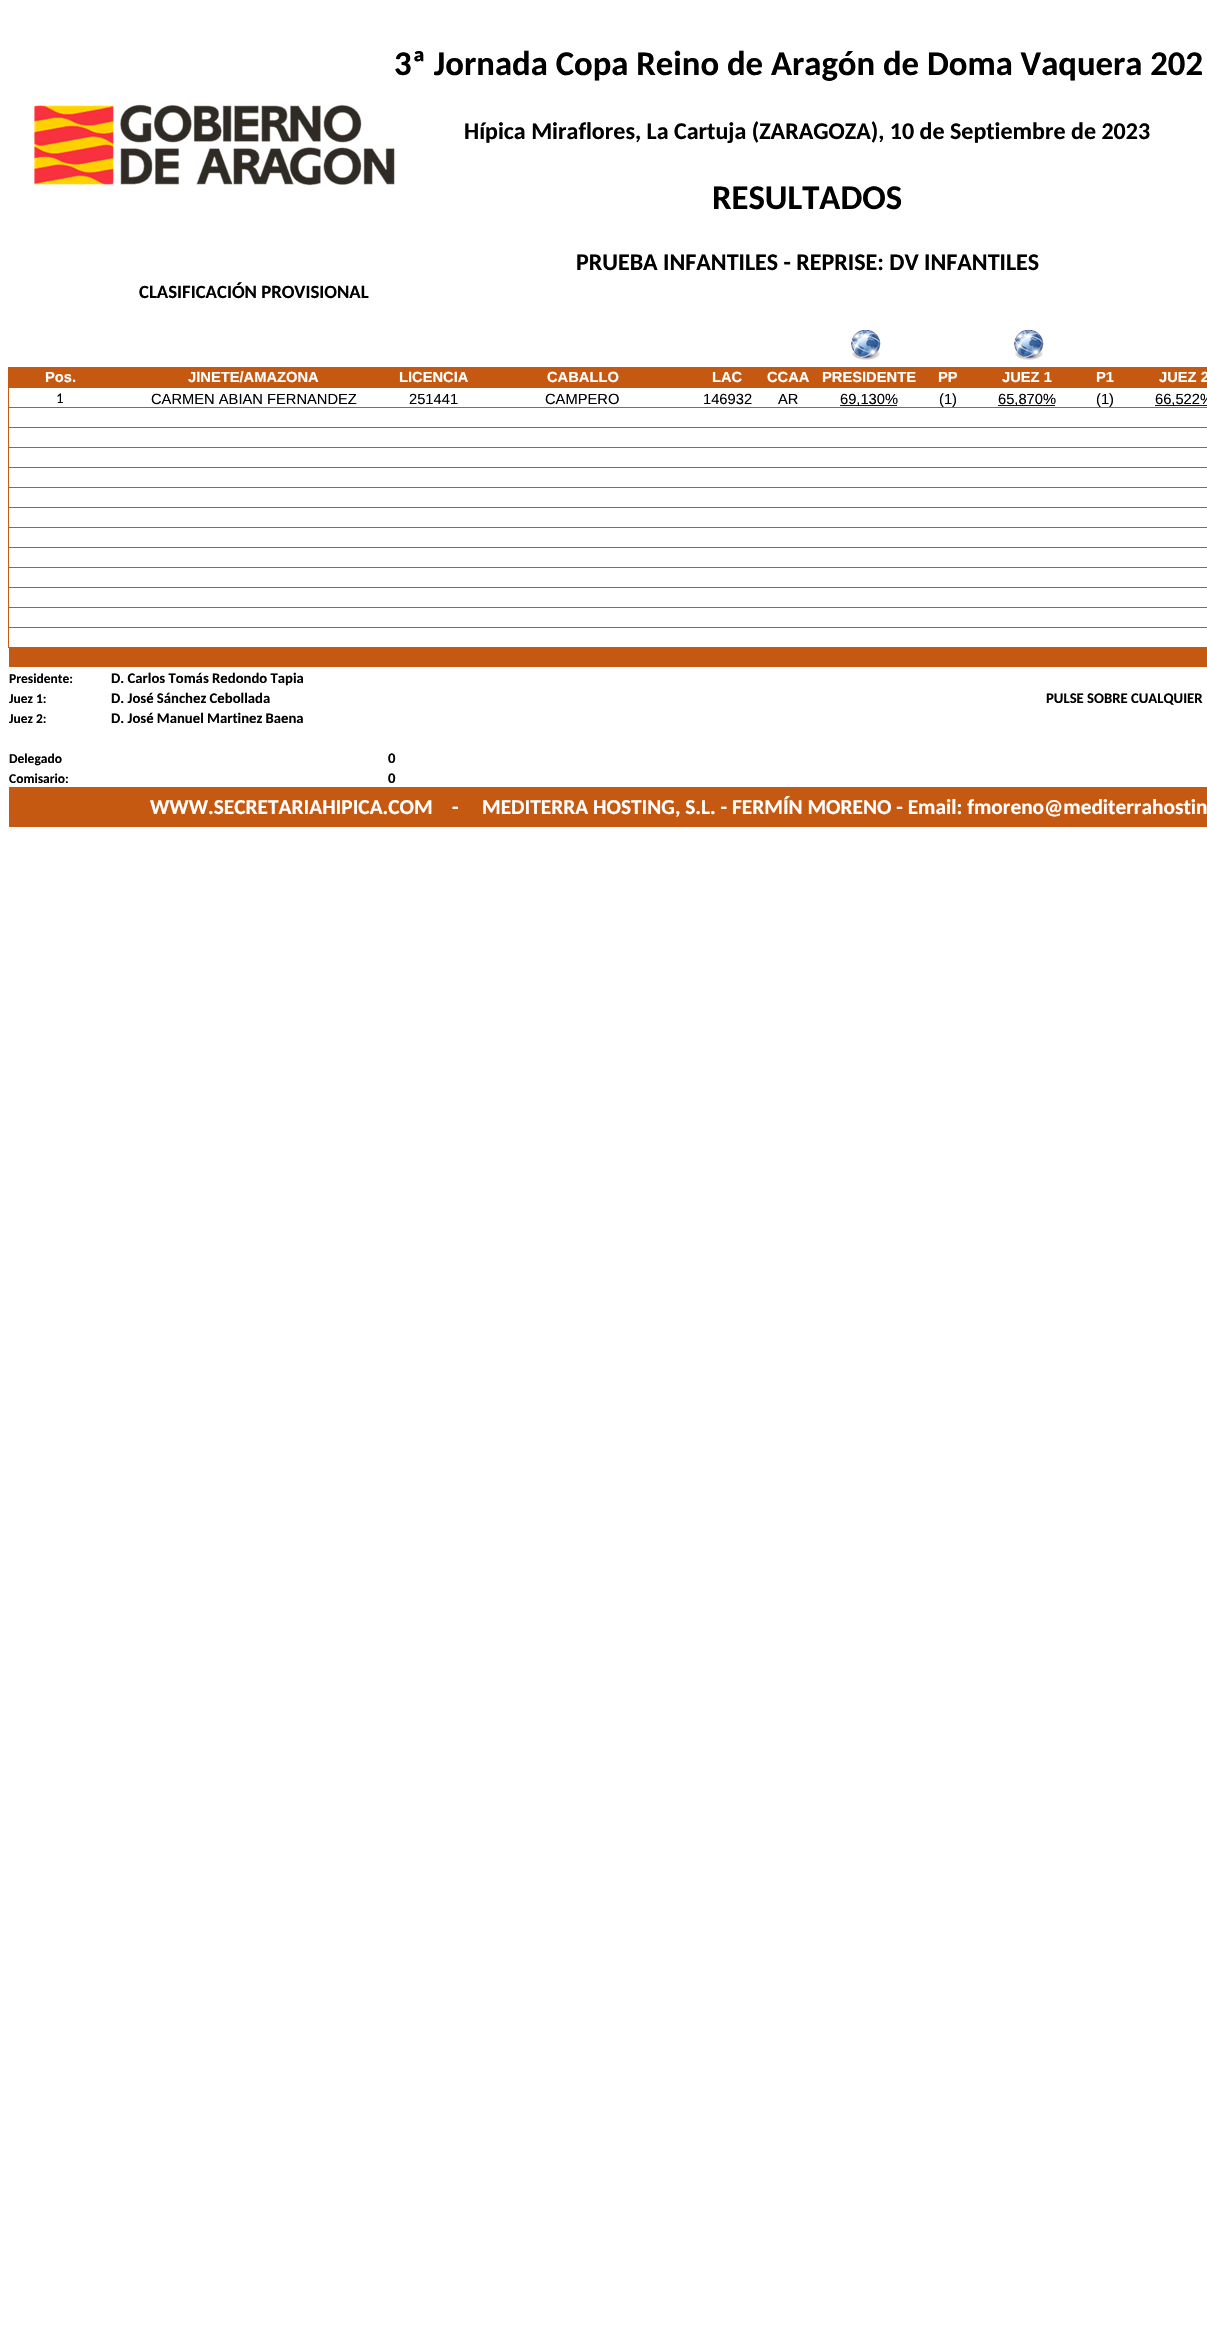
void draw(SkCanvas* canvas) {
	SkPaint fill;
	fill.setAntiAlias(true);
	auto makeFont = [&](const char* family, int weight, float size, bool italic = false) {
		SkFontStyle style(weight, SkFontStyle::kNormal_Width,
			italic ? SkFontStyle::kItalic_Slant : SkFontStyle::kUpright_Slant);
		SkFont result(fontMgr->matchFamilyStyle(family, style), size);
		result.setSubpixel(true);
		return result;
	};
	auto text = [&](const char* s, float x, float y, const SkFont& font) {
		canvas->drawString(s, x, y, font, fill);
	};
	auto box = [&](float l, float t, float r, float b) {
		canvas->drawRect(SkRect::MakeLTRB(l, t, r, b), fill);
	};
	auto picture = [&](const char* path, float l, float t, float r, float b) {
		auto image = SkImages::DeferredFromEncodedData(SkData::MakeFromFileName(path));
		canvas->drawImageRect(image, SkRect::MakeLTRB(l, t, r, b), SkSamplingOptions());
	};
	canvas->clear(0xFFFFFFFF);
	picture("image0.png", 34, 104, 395, 186);
	picture("image1.png", 851, 330, 881, 360);
	picture("image1.png", 1014, 330, 1044, 360);
	fill.setColor(0xFFC65911);
	box(9, 368, 111, 387);
	box(111, 367, 1207, 387);
	box(8, 367, 112, 368);
	box(8, 387, 1207, 388);
	box(8, 407, 1207, 408);
	box(8, 427, 1207, 428);
	box(8, 447, 1207, 448);
	box(8, 467, 1207, 468);
	box(8, 487, 1207, 488);
	box(8, 507, 1207, 508);
	box(8, 527, 1207, 528);
	box(8, 547, 1207, 548);
	box(8, 567, 1207, 568);
	box(8, 587, 1207, 588);
	box(8, 607, 1207, 608);
	box(8, 627, 1207, 628);
	box(111, 647, 1207, 667);
	box(8, 647, 112, 648);
	box(8, 627, 9, 648);
	box(8, 607, 9, 628);
	box(8, 587, 9, 608);
	box(8, 567, 9, 588);
	box(8, 547, 9, 568);
	box(8, 527, 9, 548);
	box(8, 507, 9, 528);
	box(8, 487, 9, 508);
	box(8, 467, 9, 488);
	box(8, 447, 9, 468);
	box(8, 427, 9, 448);
	box(8, 407, 9, 428);
	box(8, 387, 9, 408);
	box(8, 367, 9, 388);
	fill.setColor(0xFF0000EE);
	box(840, 405, 897, 406);
	box(998, 405, 1055, 406);
	box(1155, 405, 1207, 406);
	fill.setColor(0xFFC65911);
	box(9, 648, 111, 667);
	box(9, 787, 1207, 827);
	auto font1 = makeFont("Carlito", 700, 34.7f);
	fill.setColor(0xFF000000);
	text("3ª Jornada Copa Reino de Aragón de Doma Vaquera 202", 394, 75, font1);
	auto font2 = makeFont("Carlito", 700, 24);
	text("Hípica Miraflores, La Cartuja (ZARAGOZA), 10 de Septiembre de 2023", 464, 139, font2);
	text("RESULTADOS", 712, 209, font1);
	text("PRUEBA INFANTILES - REPRISE: DV INFANTILES", 576, 270, font2);
	auto font3 = makeFont("Carlito", 700, 18.75f);
	text("CLASIFICACIÓN PROVISIONAL", 139, 298, font3);
	auto font4 = makeFont("Liberation Sans", 700, 14.7f);
	fill.setColor(0xFFFFFFFF);
	text("Pos.", 45, 382, font4);
	text("JINETE/AMAZONA", 188, 382, font4);
	text("LICENCIA", 399, 382, font4);
	text("CABALLO", 547, 382, font4);
	text("LAC", 712, 382, font4);
	text("CCAA", 767, 382, font4);
	text("PRESIDENTE", 822, 382, font4);
	text("PP", 938, 382, font4);
	text("JUEZ 1", 1002, 382, font4);
	text("P1", 1096, 382, font4);
	text("JUEZ 2", 1159, 382, font4);
	auto font5 = makeFont("Carlito", 400, 14.7f);
	fill.setColor(0xFF000000);
	text("1", 56, 403, font5);
	auto font6 = makeFont("Liberation Sans", 400, 14.7f);
	text("CARMEN ABIAN FERNANDEZ", 151, 404, font6);
	text("251441", 409, 404, font6);
	text("CAMPERO", 545, 404, font6);
	text("146932", 703, 404, font6);
	text("AR", 778, 404, font6);
	text("69,130%", 840, 404, font6);
	text("(1)", 939, 404, font6);
	text("65,870%", 998, 404, font6);
	text("(1)", 1096, 404, font6);
	text("66,522%", 1155, 404, font6);
	auto font7 = makeFont("Carlito", 700, 13.5f);
	text("Presidente:", 9, 683, font7);
	auto font8 = makeFont("Carlito", 700, 14.7f);
	text("D. Carlos Tomás Redondo Tapia", 111, 683, font8);
	text("Juez 1:", 9, 703, font7);
	text("D. José Sánchez Cebollada", 111, 703, font8);
	text("PULSE SOBRE CUALQUIER", 1046, 703, font8);
	text("Juez 2:", 9, 723, font7);
	text("D. José Manuel Martinez Baena", 111, 723, font8);
	text("Delegado", 9, 763, font7);
	text("0", 388, 763, font8);
	text("Comisario:", 9, 783, font7);
	text("0", 388, 783, font8);
	auto font9 = makeFont("Carlito", 700, 21.35f);
	fill.setColor(0xFFFFFFFF);
	text("WWW.SECRETARIAHIPICA.COM", 150, 814, font9);
	text("-", 452, 814, font9);
	text("MEDITERRA HOSTING, S.L. - FERMÍN MORENO - Email: fmoreno@mediterrahostin", 482, 814, font9);
}
